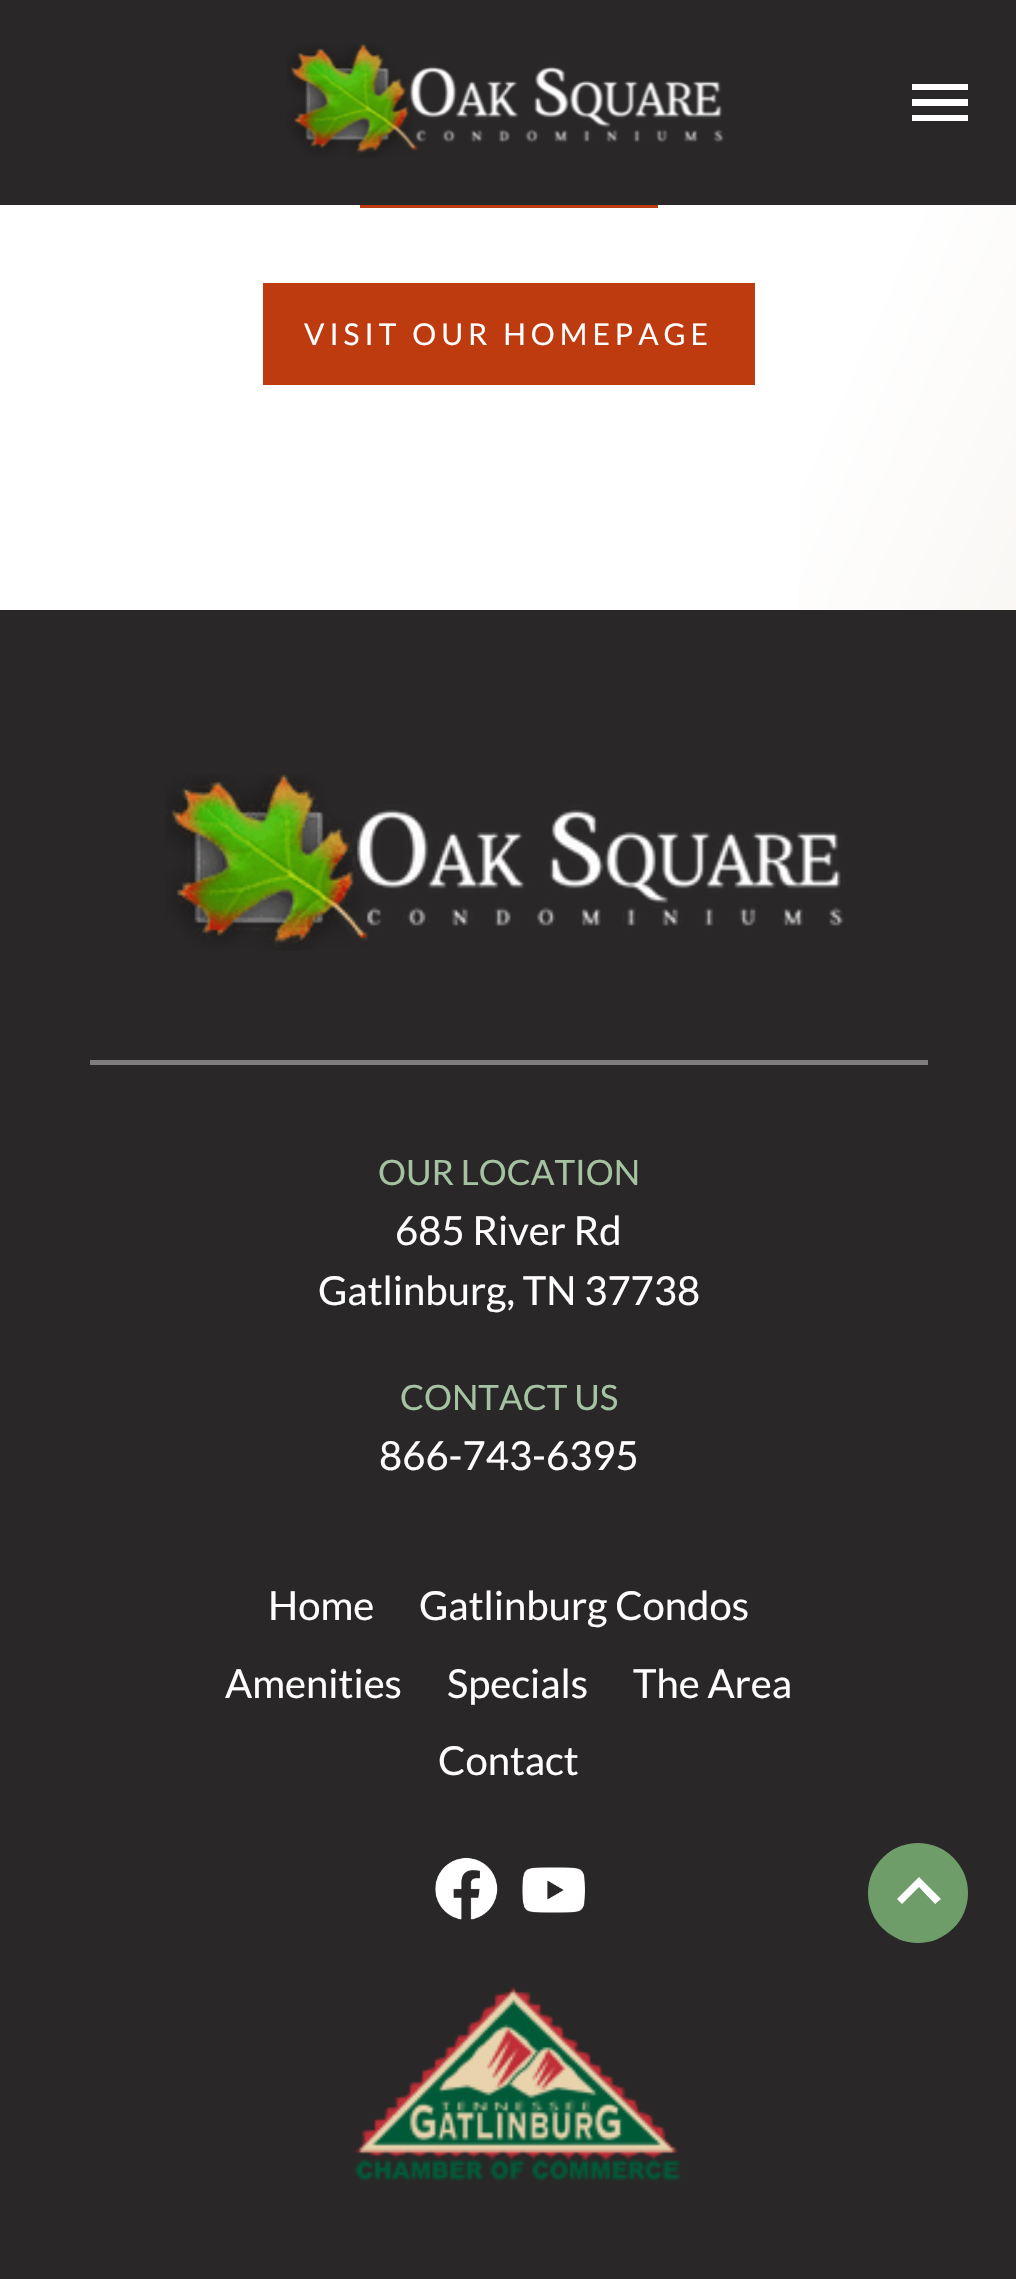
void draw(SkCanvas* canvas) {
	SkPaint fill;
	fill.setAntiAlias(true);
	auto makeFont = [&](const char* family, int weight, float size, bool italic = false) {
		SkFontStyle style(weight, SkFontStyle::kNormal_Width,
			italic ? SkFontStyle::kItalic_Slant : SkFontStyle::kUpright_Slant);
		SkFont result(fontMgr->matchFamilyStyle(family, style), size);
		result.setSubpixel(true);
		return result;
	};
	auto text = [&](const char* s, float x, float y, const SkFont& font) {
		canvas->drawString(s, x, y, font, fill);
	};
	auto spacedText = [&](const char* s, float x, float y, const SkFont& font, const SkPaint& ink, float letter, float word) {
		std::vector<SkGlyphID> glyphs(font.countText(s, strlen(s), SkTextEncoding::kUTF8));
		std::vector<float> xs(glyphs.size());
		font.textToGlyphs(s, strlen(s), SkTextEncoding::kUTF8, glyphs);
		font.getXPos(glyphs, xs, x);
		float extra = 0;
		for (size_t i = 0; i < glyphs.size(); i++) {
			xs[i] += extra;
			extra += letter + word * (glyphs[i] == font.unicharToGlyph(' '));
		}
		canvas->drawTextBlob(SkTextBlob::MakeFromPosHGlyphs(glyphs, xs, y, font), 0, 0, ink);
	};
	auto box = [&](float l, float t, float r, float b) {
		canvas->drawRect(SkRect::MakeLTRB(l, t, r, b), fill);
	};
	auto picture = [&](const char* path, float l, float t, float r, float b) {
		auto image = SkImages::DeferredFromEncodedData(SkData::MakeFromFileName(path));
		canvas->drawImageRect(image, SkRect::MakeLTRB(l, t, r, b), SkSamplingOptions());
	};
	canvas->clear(0xFFFFFFFF);
	{
		const SkColor colors[] = {0xFFEEE6DD, 0xFFFFFFFF};
		const float stops[] = {0.09f, 0.46f};
		const SkPoint ends[] = {{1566, 1350}, {-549, 408}};
		fill.setShader(SkGradientShader::MakeLinear(ends, colors, stops, 2, SkTileMode::kClamp));
		fill.setAlpha(255);
	}
	box(799, 205, 1016, 610);
	fill.setShader(nullptr);
	fill.setColor(0xFF292727);
	box(0, 0, 1016, 205);
	picture("image0.png", 287, 44, 724, 158);
	fill.setColor(0xFFFFFFFF);
	canvas->drawPath(SkPathBuilder().moveTo(912, 84).lineTo(968, 84).lineTo(968, 90).lineTo(912, 90).close().moveTo(912, 106).lineTo(912, 99).lineTo(968, 99).lineTo(968, 106).close().moveTo(912, 121).lineTo(912, 115).lineTo(968, 115).lineTo(968, 121).close().detach(), fill);
	fill.setColor(0xFFBE3A0F);
	box(360, 205, 658, 208);
	box(263, 283, 755, 385);
	fill.setColor(0xFF292727);
	box(0, 610, 1016, 2279);
	fill.setColor(0xFF7F7D7D);
	box(90, 1060, 928, 1065);
	picture("image1.png", 165, 774, 844, 951);
	picture("image2.png", 435, 1857, 498, 1920);
	picture("image3.png", 522, 1867, 585, 1913);
	picture("image4.png", 354, 1987, 681, 2181);
	fill.setColor(0xFF6F9D6A);
	canvas->drawCircle(918, 1893, 50, fill);
	fill.setColor(0xFFFFFFFF);
	canvas->drawPath(SkPathBuilder().moveTo(919, 1877).lineTo(941, 1899).lineTo(935, 1904).lineTo(919, 1887).lineTo(902, 1904).lineTo(897, 1899).close().detach(), fill);
	auto font1 = makeFont("Lato", 400, 30);
	spacedText("VISIT OUR HOMEPAGE", 304, 345, font1, fill, 5, 0);
	auto font2 = makeFont("Lato", 400, 35);
	fill.setColor(0xFFA5C2A2);
	text("OUR LOCATION", 378, 1185, font2);
	auto font3 = makeFont("Lato", 400, 40);
	fill.setColor(0xFFFFFFFF);
	text("685 River Rd", 395, 1245, font3);
	text("Gatlinburg, TN 37738", 318, 1305, font3);
	fill.setColor(0xFFA5C2A2);
	text("CONTACT US", 400, 1410, font2);
	fill.setColor(0xFFFFFFFF);
	text("866-743-6395", 379, 1470, font3);
	text("Home", 268, 1620, font3);
	text("Gatlinburg Condos", 419, 1620, font3);
	text("Amenities", 225, 1698, font3);
	text("Specials", 447, 1698, font3);
	text("The Area", 633, 1698, font3);
	text("Contact", 438, 1775, font3);
}
